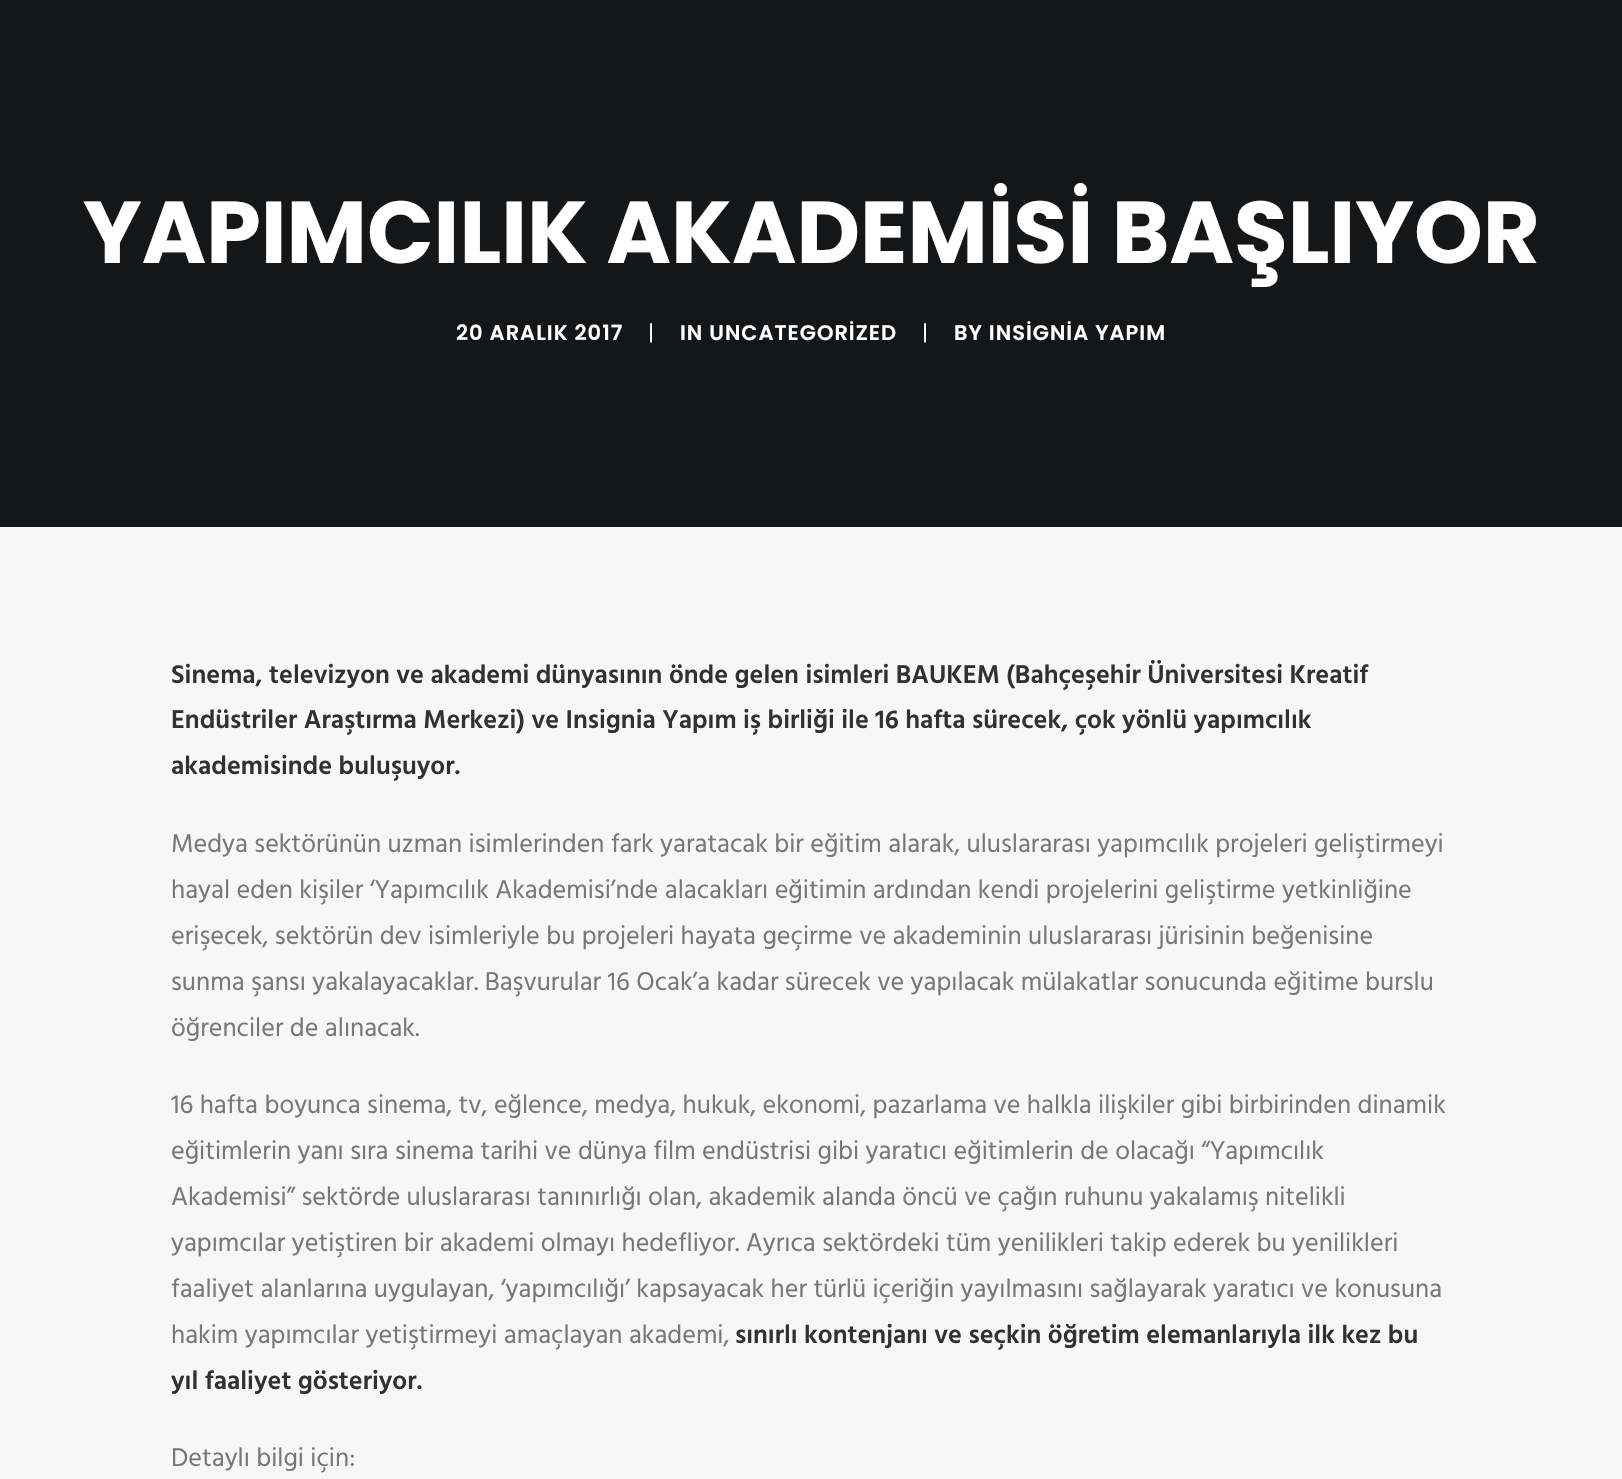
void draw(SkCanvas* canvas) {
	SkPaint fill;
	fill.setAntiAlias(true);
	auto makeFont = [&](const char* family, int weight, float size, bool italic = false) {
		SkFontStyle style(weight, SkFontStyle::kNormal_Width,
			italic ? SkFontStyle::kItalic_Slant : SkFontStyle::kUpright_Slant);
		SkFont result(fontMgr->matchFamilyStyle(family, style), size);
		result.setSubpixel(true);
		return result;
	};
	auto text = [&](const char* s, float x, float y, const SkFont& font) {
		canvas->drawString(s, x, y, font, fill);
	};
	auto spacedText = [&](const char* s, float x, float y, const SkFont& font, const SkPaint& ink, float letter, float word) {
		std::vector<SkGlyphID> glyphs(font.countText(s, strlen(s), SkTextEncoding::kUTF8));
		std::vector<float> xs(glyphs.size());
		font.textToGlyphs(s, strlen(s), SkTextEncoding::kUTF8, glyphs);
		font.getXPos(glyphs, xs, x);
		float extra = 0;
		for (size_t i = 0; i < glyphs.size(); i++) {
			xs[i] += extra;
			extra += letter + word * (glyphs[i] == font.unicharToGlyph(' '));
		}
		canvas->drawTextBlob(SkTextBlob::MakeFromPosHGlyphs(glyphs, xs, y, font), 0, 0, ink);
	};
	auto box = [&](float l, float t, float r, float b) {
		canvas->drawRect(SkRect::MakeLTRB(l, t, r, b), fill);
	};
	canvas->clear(0xFF141618);
	fill.setColor(0xFFF7F7F7);
	box(0, 527, 1622, 1479);
	auto font1 = makeFont("Poppins", 700, 87.5f);
	fill.setColor(0xFFFFFFFF);
	text("YAPIMCILIK AKADEMİSİ BAŞLIYOR", 83, 263, font1);
	auto font2 = makeFont("Poppins", 600, 21);
	spacedText("20 ARALIK 2017", 456, 340, font2, fill, 1, 0);
	auto font3 = makeFont("Poppins", 400, 21);
	spacedText("|", 648, 340, font3, fill, 1, 0);
	spacedText("IN UNCATEGORİZED", 680, 340, font2, fill, 1, 0);
	spacedText("|", 922, 340, font3, fill, 1, 0);
	spacedText("BY INSİGNİA YAPIM", 954, 340, font2, fill, 1, 0);
	auto font4 = makeFont("Hind", 600, 26.25f);
	fill.setColor(0xFF303133);
	text("Sinema, televizyon ve akademi dünyasının önde gelen isimleri BAUKEM (Bahçeşehir Üniversitesi Kreatif", 171, 683, font4);
	text("Endüstriler Araştırma Merkezi) ve Insignia Yapım iş birliği ile 16 hafta sürecek, çok yönlü yapımcılık", 171, 728, font4);
	text("akademisinde buluşuyor.", 171, 774, font4);
	auto font5 = makeFont("Hind", 400, 26.25f);
	fill.setColor(0xFF777777);
	text("Medya sektörünün uzman isimlerinden fark yaratacak bir eğitim alarak, uluslararası yapımcılık projeleri geliştirmeyi", 171, 852, font5);
	text("hayal eden kişiler ‘Yapımcılık Akademisi’nde alacakları eğitimin ardından kendi projelerini geliştirme yetkinliğine", 171, 898, font5);
	text("erişecek, sektörün dev isimleriyle bu projeleri hayata geçirme ve akademinin uluslararası jürisinin beğenisine", 171, 944, font5);
	text("sunma şansı yakalayacaklar. Başvurular 16 Ocak’a kadar sürecek ve yapılacak mülakatlar sonucunda eğitime burslu", 171, 990, font5);
	text("öğrenciler de alınacak.", 171, 1036, font5);
	text("16 hafta boyunca sinema, tv, eğlence, medya, hukuk, ekonomi, pazarlama ve halkla ilişkiler gibi birbirinden dinamik", 171, 1113, font5);
	text("eğitimlerin yanı sıra sinema tarihi ve dünya film endüstrisi gibi yaratıcı eğitimlerin de olacağı “Yapımcılık", 171, 1159, font5);
	text("Akademisi” sektörde uluslararası tanınırlığı olan, akademik alanda öncü ve çağın ruhunu yakalamış nitelikli", 171, 1205, font5);
	text("yapımcılar yetiştiren bir akademi olmayı hedefliyor. Ayrıca sektördeki tüm yenilikleri takip ederek bu yenilikleri", 171, 1251, font5);
	text("faaliyet alanlarına uygulayan, ‘yapımcılığı’ kapsayacak her türlü içeriğin yayılmasını sağlayarak yaratıcı ve konusuna", 171, 1297, font5);
	text("hakim yapımcılar yetiştirmeyi amaçlayan akademi,", 171, 1343, font5);
	fill.setColor(0xFF303133);
	text("sınırlı kontenjanı ve seçkin öğretim elemanlarıyla ilk kez bu", 735, 1343, font4);
	text("yıl faaliyet gösteriyor.", 171, 1389, font4);
	fill.setColor(0xFF777777);
	text("Detaylı bilgi için:", 171, 1466, font5);
}
